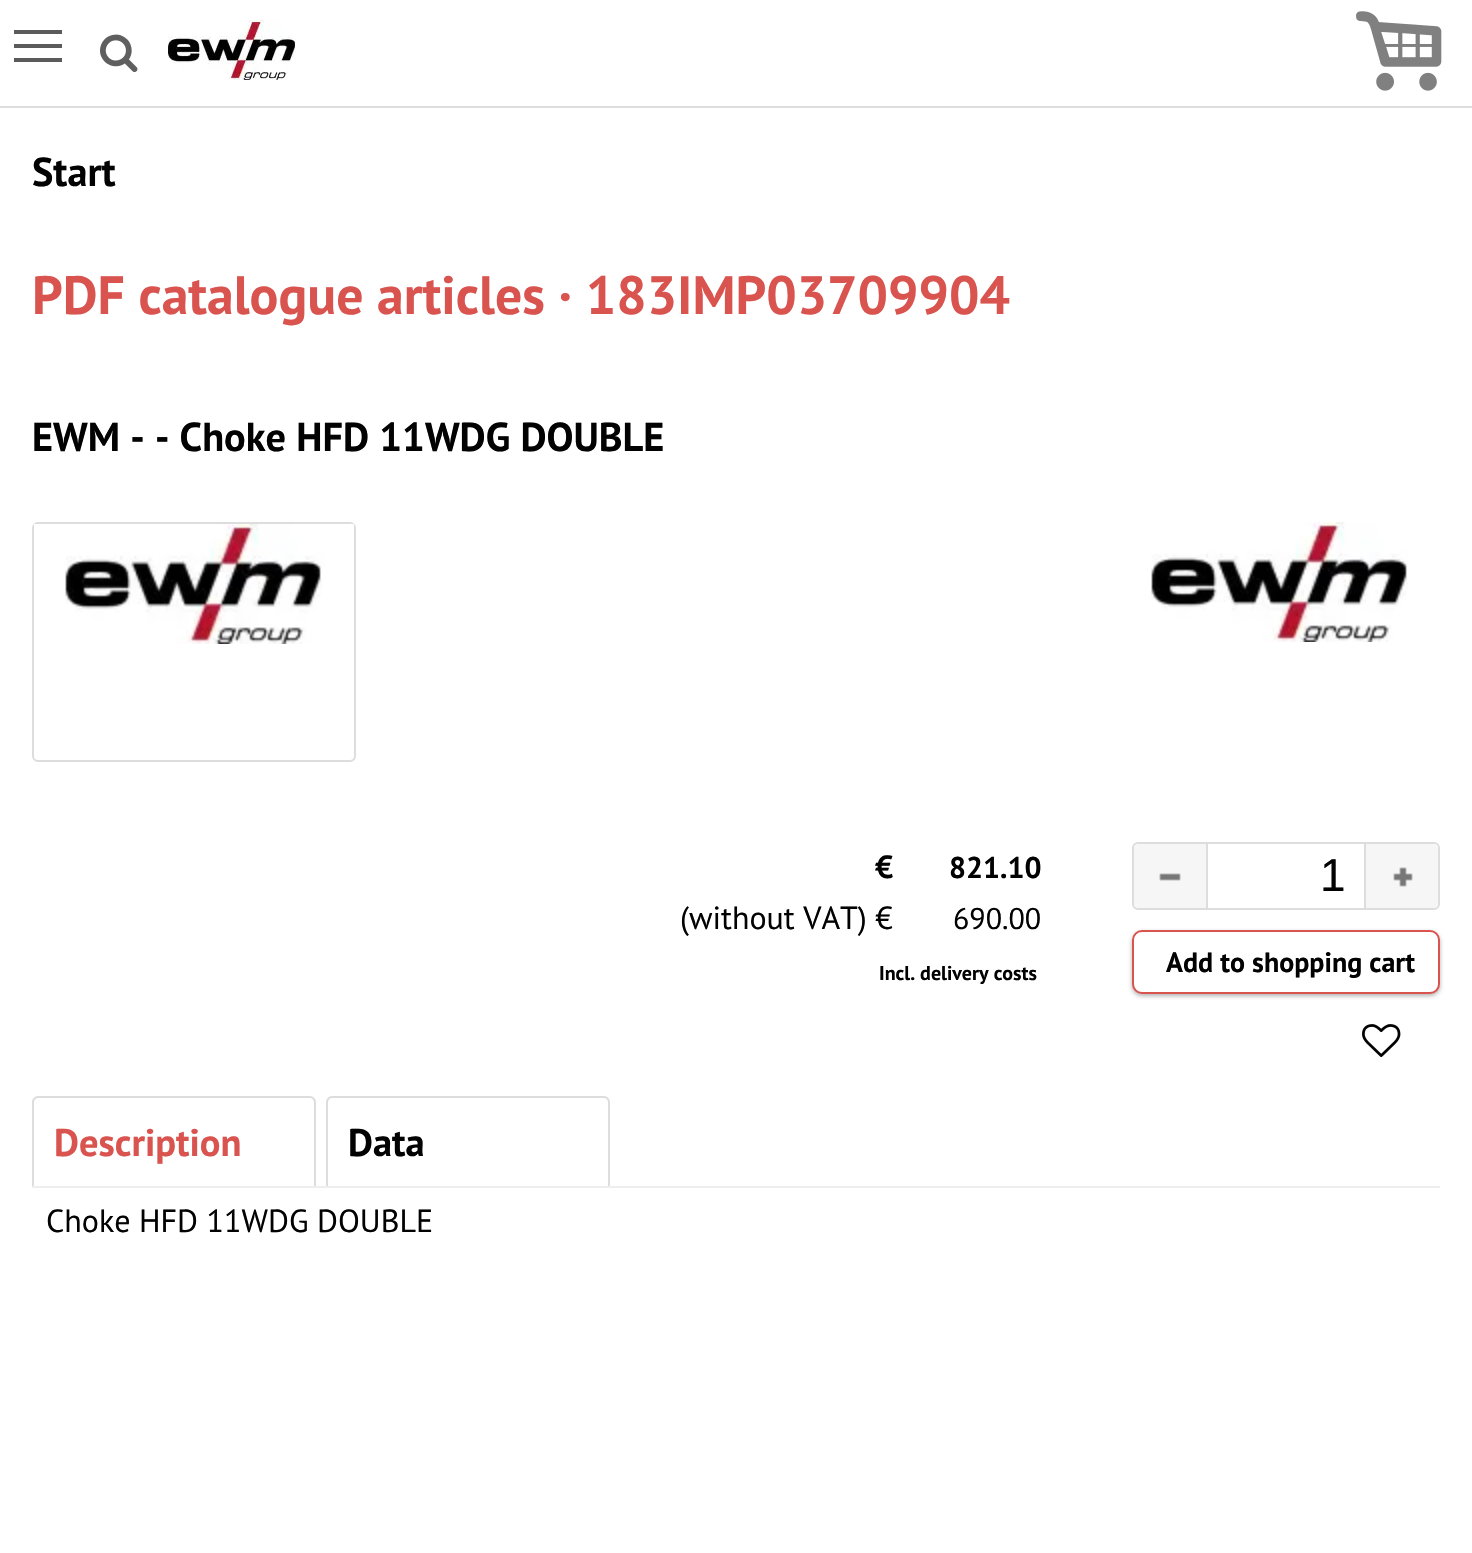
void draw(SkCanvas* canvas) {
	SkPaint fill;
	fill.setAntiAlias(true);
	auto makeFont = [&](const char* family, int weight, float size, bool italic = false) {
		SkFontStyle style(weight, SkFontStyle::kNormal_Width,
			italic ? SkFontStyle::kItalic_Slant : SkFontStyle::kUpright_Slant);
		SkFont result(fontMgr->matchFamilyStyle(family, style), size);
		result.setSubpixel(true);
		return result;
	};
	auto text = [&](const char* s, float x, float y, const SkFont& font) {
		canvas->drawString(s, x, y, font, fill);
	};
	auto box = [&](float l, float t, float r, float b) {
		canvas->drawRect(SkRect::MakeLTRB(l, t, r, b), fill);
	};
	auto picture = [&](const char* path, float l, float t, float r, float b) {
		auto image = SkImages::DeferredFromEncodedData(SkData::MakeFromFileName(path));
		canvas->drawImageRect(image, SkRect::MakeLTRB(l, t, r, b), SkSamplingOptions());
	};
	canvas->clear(0xFFFFFFFF);
	fill.setColor(0xFFDDDDDD);
	box(0, 106, 1472, 108);
	fill.setColor(0xFF5B5B5B);
	box(14, 44, 62, 48);
	box(14, 30, 62, 34);
	box(14, 58, 62, 62);
	picture("image0.png", 1356, 11, 1442, 91);
	picture("image1.png", 100, 34, 138, 72);
	picture("image2.png", 168, 20, 296, 80);
	fill.setStyle(SkPaint::kStroke_Style);
	fill.setStrokeWidth(2);
	fill.setColor(0xFFDDDDDD);
	canvas->drawRoundRect(SkRect::MakeLTRB(33, 523, 355, 761), 5, 5, fill);
	picture("image3.png", 34, 524, 354, 644);
	picture("image4.png", 1151, 522, 1408, 642);
	canvas->drawRoundRect(SkRect::MakeLTRB(1133, 843, 1439, 909), 5, 5, fill);
	fill.setStyle(SkPaint::kFill_Style);
	fill.setColor(0xFFF6F6F6);
	canvas->drawPath(SkPathBuilder().moveTo(1138, 844).lineTo(1208, 844).lineTo(1208, 908).lineTo(1138, 908).cubicTo(1136, 908, 1134, 906, 1134, 904).lineTo(1134, 848).cubicTo(1134, 846, 1136, 844, 1138, 844).close().detach(), fill);
	fill.setColor(0xFFDDDDDD);
	box(1206, 844, 1208, 908);
	picture("image5.png", 1159, 873, 1181, 881);
	canvas->save();
	canvas->clipPath(SkPathBuilder().moveTo(1138, 844).lineTo(1434, 844).cubicTo(1436, 844, 1438, 846, 1438, 848).lineTo(1438, 904).cubicTo(1438, 906, 1436, 908, 1434, 908).lineTo(1138, 908).cubicTo(1136, 908, 1134, 906, 1134, 904).lineTo(1134, 848).cubicTo(1134, 846, 1136, 844, 1138, 844).close().detach(), true);
	fill.setColor(0xFFF6F6F6);
	canvas->drawPath(SkPathBuilder().moveTo(1364, 844).lineTo(1432, 844).cubicTo(1435.5f, 844, 1438, 846.5f, 1438, 850).lineTo(1438, 904).cubicTo(1438, 906, 1436, 908, 1434, 908).lineTo(1364, 908).close().detach(), fill);
	canvas->restore();
	fill.setColor(0xFFDDDDDD);
	box(1364, 844, 1366, 908);
	picture("image6.png", 1393, 867, 1413, 887);
	fill.setColor(0x4D000000);
	fill.setMaskFilter(SkMaskFilter::MakeBlur(kNormal_SkBlurStyle, 2));
	canvas->drawRoundRect(SkRect::MakeLTRB(1132, 932, 1440, 996), 10, 10, fill);
	fill.setMaskFilter(nullptr);
	fill.setColor(0xFFFFFFFF);
	canvas->drawRoundRect(SkRect::MakeLTRB(1133, 931, 1439, 993), 9, 9, fill);
	fill.setStyle(SkPaint::kStroke_Style);
	fill.setColor(0xFFD9534F);
	canvas->drawRoundRect(SkRect::MakeLTRB(1133, 931, 1439, 993), 9, 9, fill);
	picture("image7.png", 1362, 1024, 1401, 1057);
	fill.setStyle(SkPaint::kFill_Style);
	fill.setColor(0xFFDDDDDD);
	canvas->drawPath(SkPathBuilder(SkPathFillType::kEvenOdd).moveTo(38, 1096).lineTo(310, 1096).cubicTo(313, 1096, 316, 1099, 316, 1102).lineTo(316, 1186).lineTo(32, 1186).lineTo(32, 1102).cubicTo(32, 1099, 35, 1096, 38, 1096).close().moveTo(38, 1098).lineTo(310, 1098).cubicTo(312, 1098, 314, 1100, 314, 1102).lineTo(314, 1186).lineTo(34, 1186).lineTo(34, 1102).cubicTo(34, 1100, 36, 1098, 38, 1098).close().detach(), fill);
	canvas->drawPath(SkPathBuilder(SkPathFillType::kEvenOdd).moveTo(332, 1096).lineTo(604, 1096).cubicTo(607, 1096, 610, 1099, 610, 1102).lineTo(610, 1186).lineTo(326, 1186).lineTo(326, 1102).cubicTo(326, 1099, 329, 1096, 332, 1096).close().moveTo(332, 1098).lineTo(604, 1098).cubicTo(606, 1098, 608, 1100, 608, 1102).lineTo(608, 1186).lineTo(328, 1186).lineTo(328, 1102).cubicTo(328, 1100, 330, 1098, 332, 1098).close().detach(), fill);
	fill.setColor(0xFFEEEEEE);
	box(32, 1186, 1440, 1188);
	auto font1 = makeFont("PT Sans", 700, 40.3f);
	fill.setColor(0xFF020202);
	text("Start", 32, 186, font1);
	auto font2 = makeFont("PT Sans", 700, 53.75f);
	fill.setColor(0xFFD9534F);
	text("PDF catalogue articles · 183IMP03709904", 32, 314, font2);
	fill.setColor(0xFF020202);
	text("EWM - - Choke HFD 11WDG DOUBLE", 32, 451, font1);
	auto font3 = makeFont("PT Sans", 700, 32);
	text("€", 875, 878, font3);
	auto font4 = makeFont("PT Sans", 700, 30);
	text("821.10", 949, 878, font4);
	auto font5 = makeFont("PT Sans", 400, 32);
	text("(without VAT) €", 680, 929, font5);
	auto font6 = makeFont("PT Sans", 400, 30);
	text("690.00", 953, 929, font6);
	auto font7 = makeFont("PT Sans", 700, 20);
	text("Incl. delivery costs", 879, 980, font7);
	auto font8 = makeFont("Liberation Sans", 400, 46);
	text("1", 1320, 891, font8);
	auto font9 = makeFont("PT Sans", 700, 28);
	text("Add to shopping cart", 1166, 972, font9);
	auto font10 = makeFont("PT Sans", 700, 38.5f);
	fill.setColor(0xFFD9534F);
	text("Description", 54, 1156, font10);
	fill.setColor(0xFF020202);
	text("Data", 348, 1156, font10);
	text("Choke HFD 11WDG DOUBLE", 46, 1232, font5);
}
